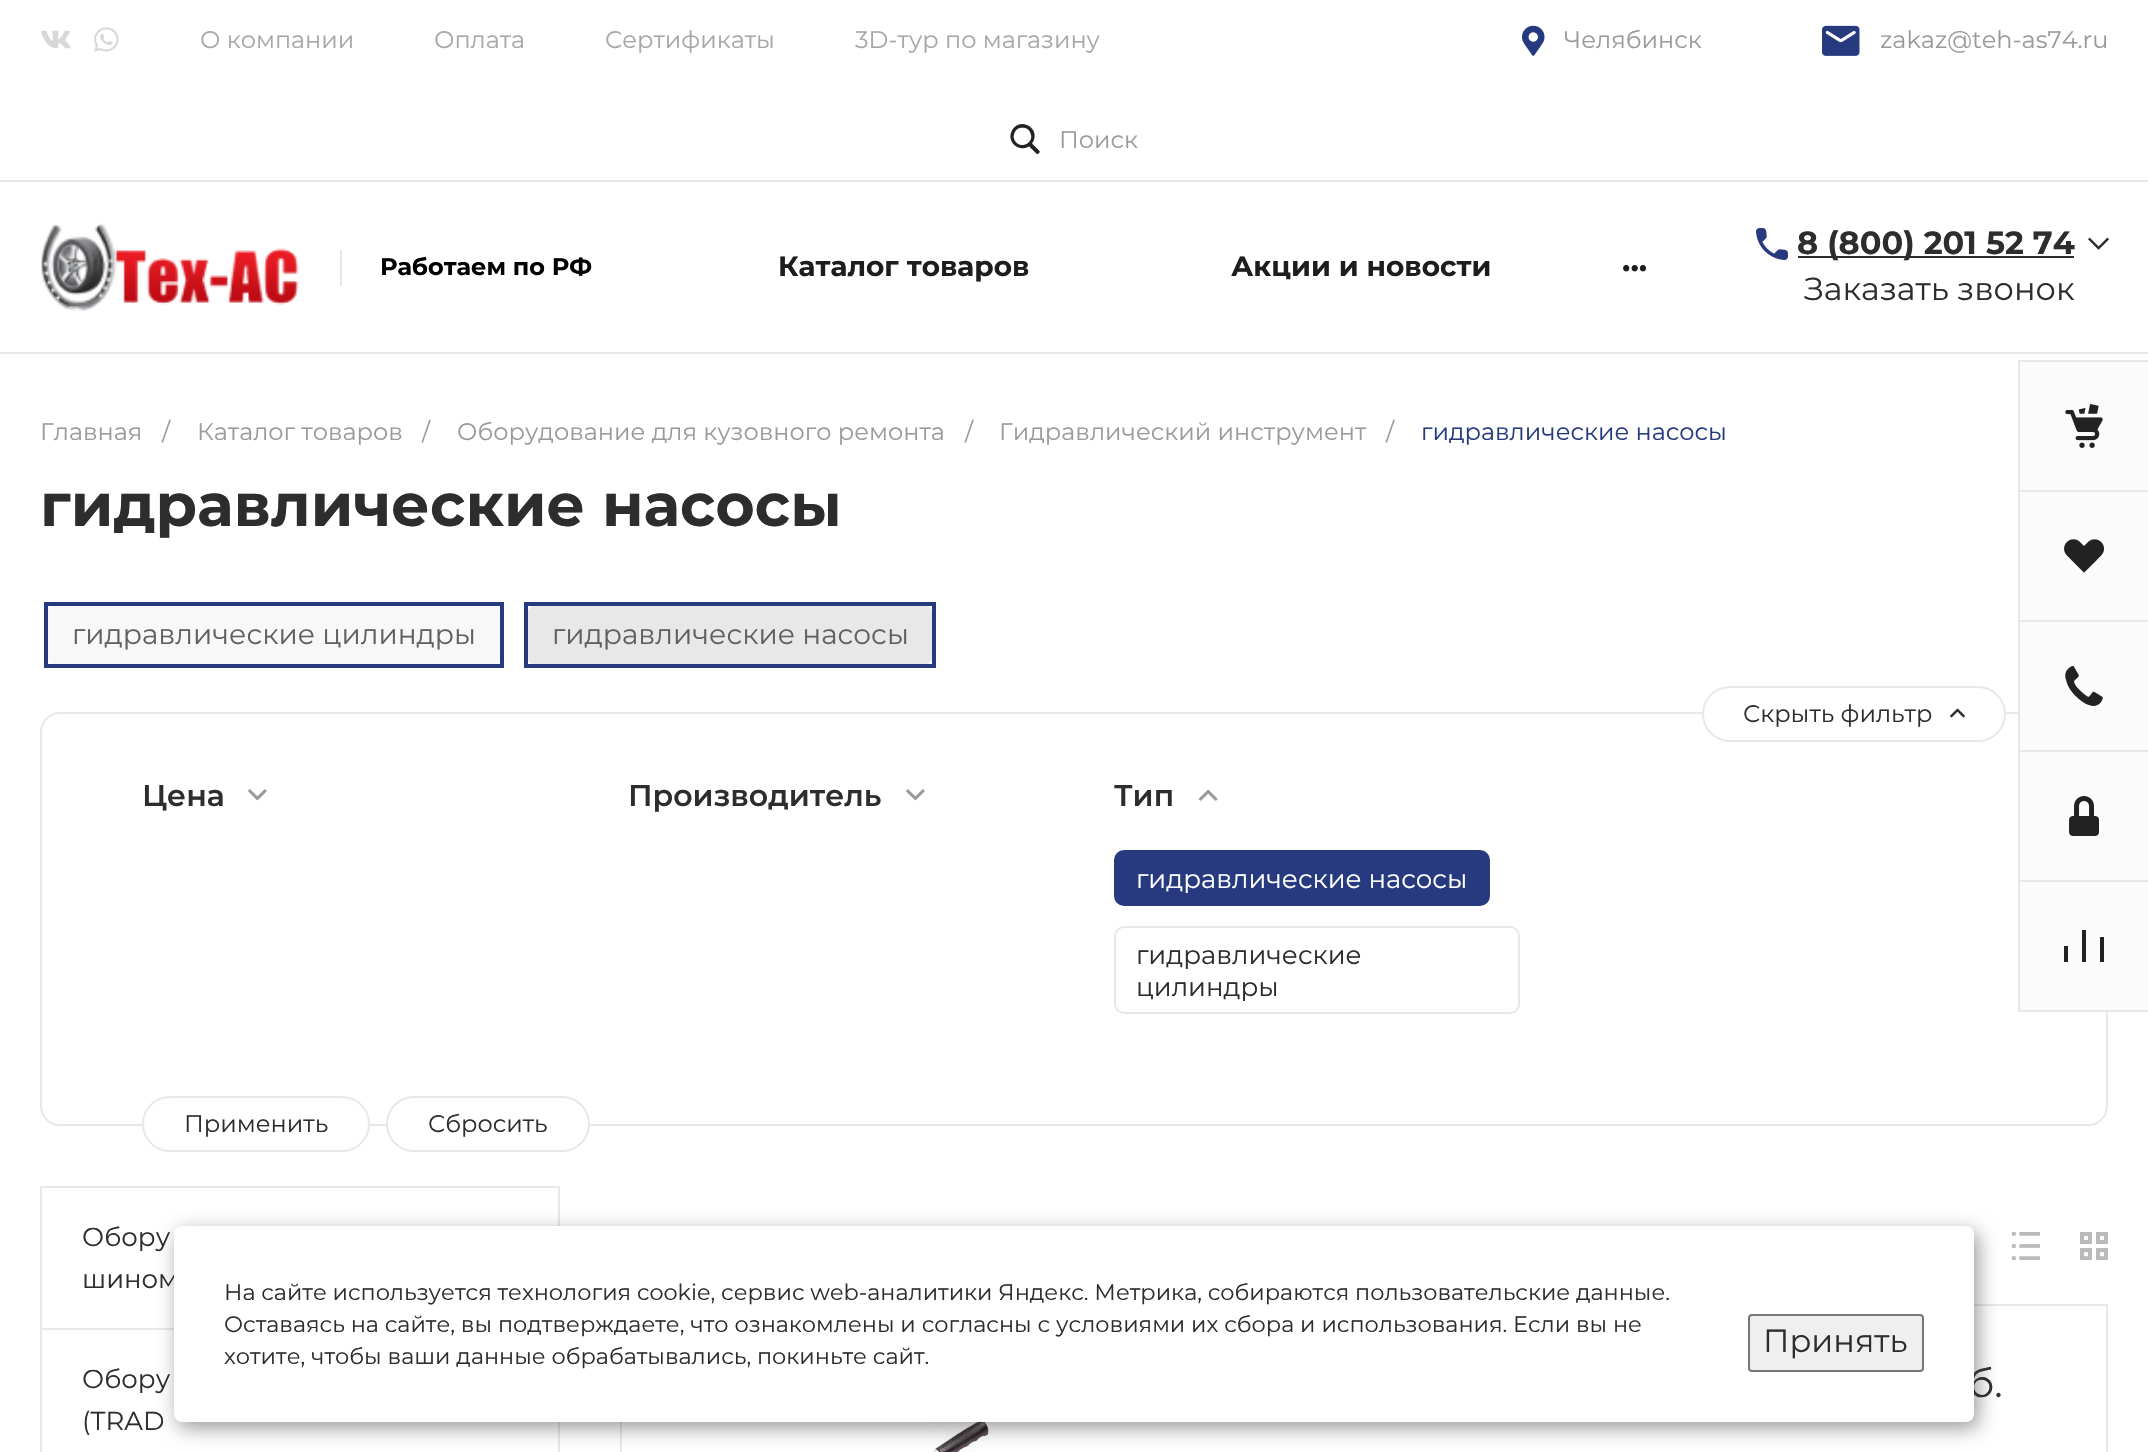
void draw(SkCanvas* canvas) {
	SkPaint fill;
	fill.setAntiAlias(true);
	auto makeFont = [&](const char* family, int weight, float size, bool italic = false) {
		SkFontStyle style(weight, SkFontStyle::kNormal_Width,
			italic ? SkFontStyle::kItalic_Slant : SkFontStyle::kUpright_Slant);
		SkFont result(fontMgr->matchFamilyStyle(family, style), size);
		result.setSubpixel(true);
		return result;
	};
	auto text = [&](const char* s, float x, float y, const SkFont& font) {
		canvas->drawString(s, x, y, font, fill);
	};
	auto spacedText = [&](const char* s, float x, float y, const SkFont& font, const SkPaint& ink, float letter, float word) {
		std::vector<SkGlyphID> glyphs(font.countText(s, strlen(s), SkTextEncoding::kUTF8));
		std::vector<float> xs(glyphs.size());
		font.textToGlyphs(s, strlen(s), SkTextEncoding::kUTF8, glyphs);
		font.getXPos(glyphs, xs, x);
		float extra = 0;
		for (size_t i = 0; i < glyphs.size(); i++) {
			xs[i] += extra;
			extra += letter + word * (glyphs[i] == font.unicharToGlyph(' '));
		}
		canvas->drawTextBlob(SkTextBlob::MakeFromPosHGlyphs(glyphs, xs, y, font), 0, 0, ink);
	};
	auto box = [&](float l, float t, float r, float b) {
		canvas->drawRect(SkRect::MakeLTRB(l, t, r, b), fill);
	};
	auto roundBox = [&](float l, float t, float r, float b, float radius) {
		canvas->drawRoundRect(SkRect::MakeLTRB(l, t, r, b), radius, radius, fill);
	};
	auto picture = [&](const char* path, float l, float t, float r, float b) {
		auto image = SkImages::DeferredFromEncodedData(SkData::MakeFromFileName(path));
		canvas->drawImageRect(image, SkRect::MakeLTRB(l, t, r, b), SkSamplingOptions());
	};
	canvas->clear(0xFFFFFFFF);
	fill.setColor(0xFFE8E8E8);
	box(0, 180, 2148, 182);
	picture("image0.png", 41, 30, 71, 49);
	picture("image1.png", 94, 27, 119, 52);
	picture("image2.png", 1522, 25, 1545, 56);
	picture("image3.png", 1822, 25, 1860, 56);
	picture("image4.png", 1010, 124, 1040, 154);
	box(0, 352, 2148, 354);
	picture("image5.png", 41, 223, 299, 312);
	box(340, 250, 342, 286);
	picture("image6.png", 1756, 228, 1788, 260);
	fill.setColor(0xFF2D2D2D);
	box(1798, 256, 2074, 258);
	picture("image7.png", 2088, 237, 2109, 250);
	fill.setStyle(SkPaint::kStroke_Style);
	fill.setStrokeWidth(2);
	fill.setColor(0xFFE8E8E8);
	canvas->drawRoundRect(SkRect::MakeLTRB(41, 713, 2107, 1125), 19, 19, fill);
	fill.setStyle(SkPaint::kFill_Style);
	fill.setColor(0xFFFBFBFB);
	box(2020, 362, 2148, 1010);
	fill.setColor(0xFFE7E7E7);
	box(2018, 360, 2148, 362);
	box(2018, 1010, 2148, 1012);
	box(2018, 360, 2020, 1012);
	box(2020, 490, 2148, 492);
	picture("image8.png", 2065, 404, 2103, 448);
	box(2020, 620, 2148, 622);
	picture("image9.png", 2064, 539, 2104, 573);
	box(2020, 750, 2148, 752);
	picture("image10.png", 2065, 666, 2103, 707);
	box(2020, 880, 2148, 882);
	picture("image11.png", 2069, 796, 2099, 836);
	fill.setColor(0xFF222222);
	canvas->drawPath(SkPathBuilder().moveTo(2064, 962).lineTo(2068, 962).lineTo(2068, 946).lineTo(2064, 946).close().moveTo(2082, 962).lineTo(2086, 962).lineTo(2086, 930).lineTo(2082, 930).close().moveTo(2100, 937).lineTo(2104, 937).lineTo(2104, 962).lineTo(2100, 962).close().detach(), fill);
	fill.setStyle(SkPaint::kStroke_Style);
	fill.setStrokeWidth(4);
	fill.setColor(0xFF273A80);
	canvas->drawRect(SkRect::MakeLTRB(46, 604, 502, 666), fill);
	fill.setStyle(SkPaint::kFill_Style);
	fill.setColor(0xFFF8F8F8);
	roundBox(48, 606, 500, 664, 6);
	fill.setStyle(SkPaint::kStroke_Style);
	fill.setColor(0xFF273A80);
	canvas->drawRect(SkRect::MakeLTRB(526, 604, 934, 666), fill);
	fill.setStyle(SkPaint::kFill_Style);
	fill.setColor(0xFFE8E8E8);
	roundBox(528, 606, 932, 664, 6);
	fill.setColor(0xFFFFFFFF);
	canvas->drawRoundRect(SkRect::MakeLTRB(1703, 687, 2005, 741), 27, 27, fill);
	fill.setStyle(SkPaint::kStroke_Style);
	fill.setStrokeWidth(2);
	fill.setColor(0xFFE8E8E8);
	canvas->drawRoundRect(SkRect::MakeLTRB(1703, 687, 2005, 741), 27, 27, fill);
	picture("image12.png", 1950, 708, 1965, 718);
	picture("image13.png", 248, 789, 267, 801);
	picture("image13.png", 906, 789, 925, 801);
	picture("image14.png", 1198, 789, 1218, 801);
	fill.setStyle(SkPaint::kFill_Style);
	fill.setColor(0xFF273A80);
	canvas->drawRoundRect(SkRect::MakeLTRB(1115, 851, 1489, 905), 9, 9, fill);
	fill.setStyle(SkPaint::kStroke_Style);
	canvas->drawRoundRect(SkRect::MakeLTRB(1115, 851, 1489, 905), 9, 9, fill);
	fill.setColor(0xFFE8E8E8);
	canvas->drawRoundRect(SkRect::MakeLTRB(1115, 927, 1519, 1013), 9, 9, fill);
	fill.setStyle(SkPaint::kFill_Style);
	fill.setColor(0xFFFFFFFF);
	canvas->drawRoundRect(SkRect::MakeLTRB(143, 1097, 369, 1151), 27, 27, fill);
	fill.setStyle(SkPaint::kStroke_Style);
	fill.setColor(0xFFE8E8E8);
	canvas->drawRoundRect(SkRect::MakeLTRB(143, 1097, 369, 1151), 27, 27, fill);
	fill.setStyle(SkPaint::kFill_Style);
	fill.setColor(0xFFFFFFFF);
	canvas->drawRoundRect(SkRect::MakeLTRB(387, 1097, 589, 1151), 27, 27, fill);
	fill.setStyle(SkPaint::kStroke_Style);
	fill.setColor(0xFFE8E8E8);
	canvas->drawRoundRect(SkRect::MakeLTRB(387, 1097, 589, 1151), 27, 27, fill);
	canvas->drawRect(SkRect::MakeLTRB(41, 1187, 559, 1329), fill);
	fill.setStyle(SkPaint::kFill_Style);
	box(558, 1422, 560, 1452);
	box(40, 1330, 42, 1452);
	picture("image15.png", 2012, 1232, 2040, 1260);
	picture("image16.png", 2080, 1232, 2108, 1260);
	fill.setStyle(SkPaint::kStroke_Style);
	canvas->drawRect(SkRect::MakeLTRB(621, 1305, 2107, 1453), fill);
	picture("image17.png", 932, 1422, 989, 1452);
	fill.setStyle(SkPaint::kFill_Style);
	fill.setColor(0x66000000);
	fill.setMaskFilter(SkMaskFilter::MakeBlur(kNormal_SkBlurStyle, 10));
	canvas->drawRoundRect(SkRect::MakeLTRB(178, 1232, 1978, 1428), 8, 8, fill);
	fill.setMaskFilter(nullptr);
	auto font1 = makeFont("Montserrat", 400, 24);
	fill.setColor(0xFFA7A7A7);
	text("О компании", 200, 48, font1);
	text("Оплата", 434, 48, font1);
	text("Сертификаты", 605, 48, font1);
	text("3D-тур по магазину", 855, 48, font1);
	fill.setColor(0xFF9A9A9A);
	text("Челябинск", 1564, 48, font1);
	text("zakaz@teh-as74.ru", 1880, 48, font1);
	text("Поиск", 1059, 148, font1);
	auto font2 = makeFont("Montserrat", 700, 24);
	fill.setColor(0xFF000000);
	text("Работаем по РФ", 380, 275, font2);
	auto font3 = makeFont("Montserrat", 700, 28);
	fill.setColor(0xFF1D1D1D);
	text("Каталог товаров", 778, 276, font3);
	text("Акции и новости", 1231, 276, font3);
	auto font4 = makeFont("Montserrat", 700, 32);
	text("...", 1622, 271, font4);
	fill.setColor(0xFF2D2D2D);
	text("8 (800) 201 52 74", 1797, 254, font4);
	auto font5 = makeFont("Montserrat", 400, 32);
	text("Заказать звонок", 1804, 300, font5);
	fill.setColor(0xFF9A9A9A);
	text("Главная", 40, 440, font1);
	text("/", 162, 440, font1);
	text("Каталог товаров", 197, 440, font1);
	text("/", 422, 440, font1);
	text("Оборудование для кузовного ремонта", 457, 440, font1);
	text("/", 965, 440, font1);
	text("Гидравлический инструмент", 999, 440, font1);
	text("/", 1386, 440, font1);
	fill.setColor(0xFF273A80);
	text("гидравлические насосы", 1421, 440, font1);
	auto font6 = makeFont("Montserrat", 700, 60);
	fill.setColor(0xFF2D2D2D);
	text("гидравлические насосы", 40, 526, font6);
	auto font7 = makeFont("Montserrat", 400, 28);
	fill.setColor(0xFF606060);
	text("гидравлические цилиндры", 72, 644, font7);
	text("гидравлические насосы", 552, 644, font7);
	fill.setColor(0xFF2D2D2D);
	text("Скрыть фильтр", 1743, 722, font1);
	auto font8 = makeFont("Montserrat", 600, 30);
	text("Цена", 142, 806, font8);
	text("Производитель", 628, 806, font8);
	text("Тип", 1114, 806, font8);
	auto font9 = makeFont("Montserrat", 400, 26);
	fill.setColor(0xFFFFFFFF);
	text("гидравлические насосы", 1136, 888, font9);
	fill.setColor(0xFF2D2D2D);
	text("гидравлические", 1136, 964, font9);
	text("цилиндры", 1136, 996, font9);
	text("Применить", 184, 1132, font1);
	text("Сбросить", 428, 1132, font1);
	text("Обору", 82, 1246, font9);
	text("шином", 82, 1288, font9);
	text("Обору", 82, 1388, font9);
	text("(TRAD", 82, 1430, font9);
	auto font10 = makeFont("Montserrat", 400, 40);
	fill.setColor(0xFF33312E);
	text("б.", 1968, 1397, font10);
	fill.setColor(0xFFFFFFFF);
	roundBox(174, 1226, 1974, 1422, 8);
	auto font11 = makeFont("Montserrat", 400, 22.4f);
	fill.setColor(0xFF2D2D2D);
	spacedText("На сайте используется технология cookie, сервис web-аналитики Яндекс. Метрика, собираются пользовательские данные.", 224, 1300, font11, fill, 0, -0.1f);
	text("Оставаясь на сайте, вы подтверждаете, что ознакомлены и согласны с условиями их сбора и использования. Если вы не", 224, 1332, font11);
	text("хотите, чтобы ваши данные обрабатывались, покиньте сайт.", 224, 1364, font11);
	fill.setColor(0xFFEFEFEF);
	canvas->drawRoundRect(SkRect::MakeLTRB(1749, 1315, 1923, 1371), 3, 3, fill);
	fill.setStyle(SkPaint::kStroke_Style);
	fill.setColor(0xFF767676);
	canvas->drawRoundRect(SkRect::MakeLTRB(1749, 1315, 1923, 1371), 3, 3, fill);
	fill.setStyle(SkPaint::kFill_Style);
	fill.setColor(0xFF2D2D2D);
	text("Принять", 1763, 1352, font5);
}
